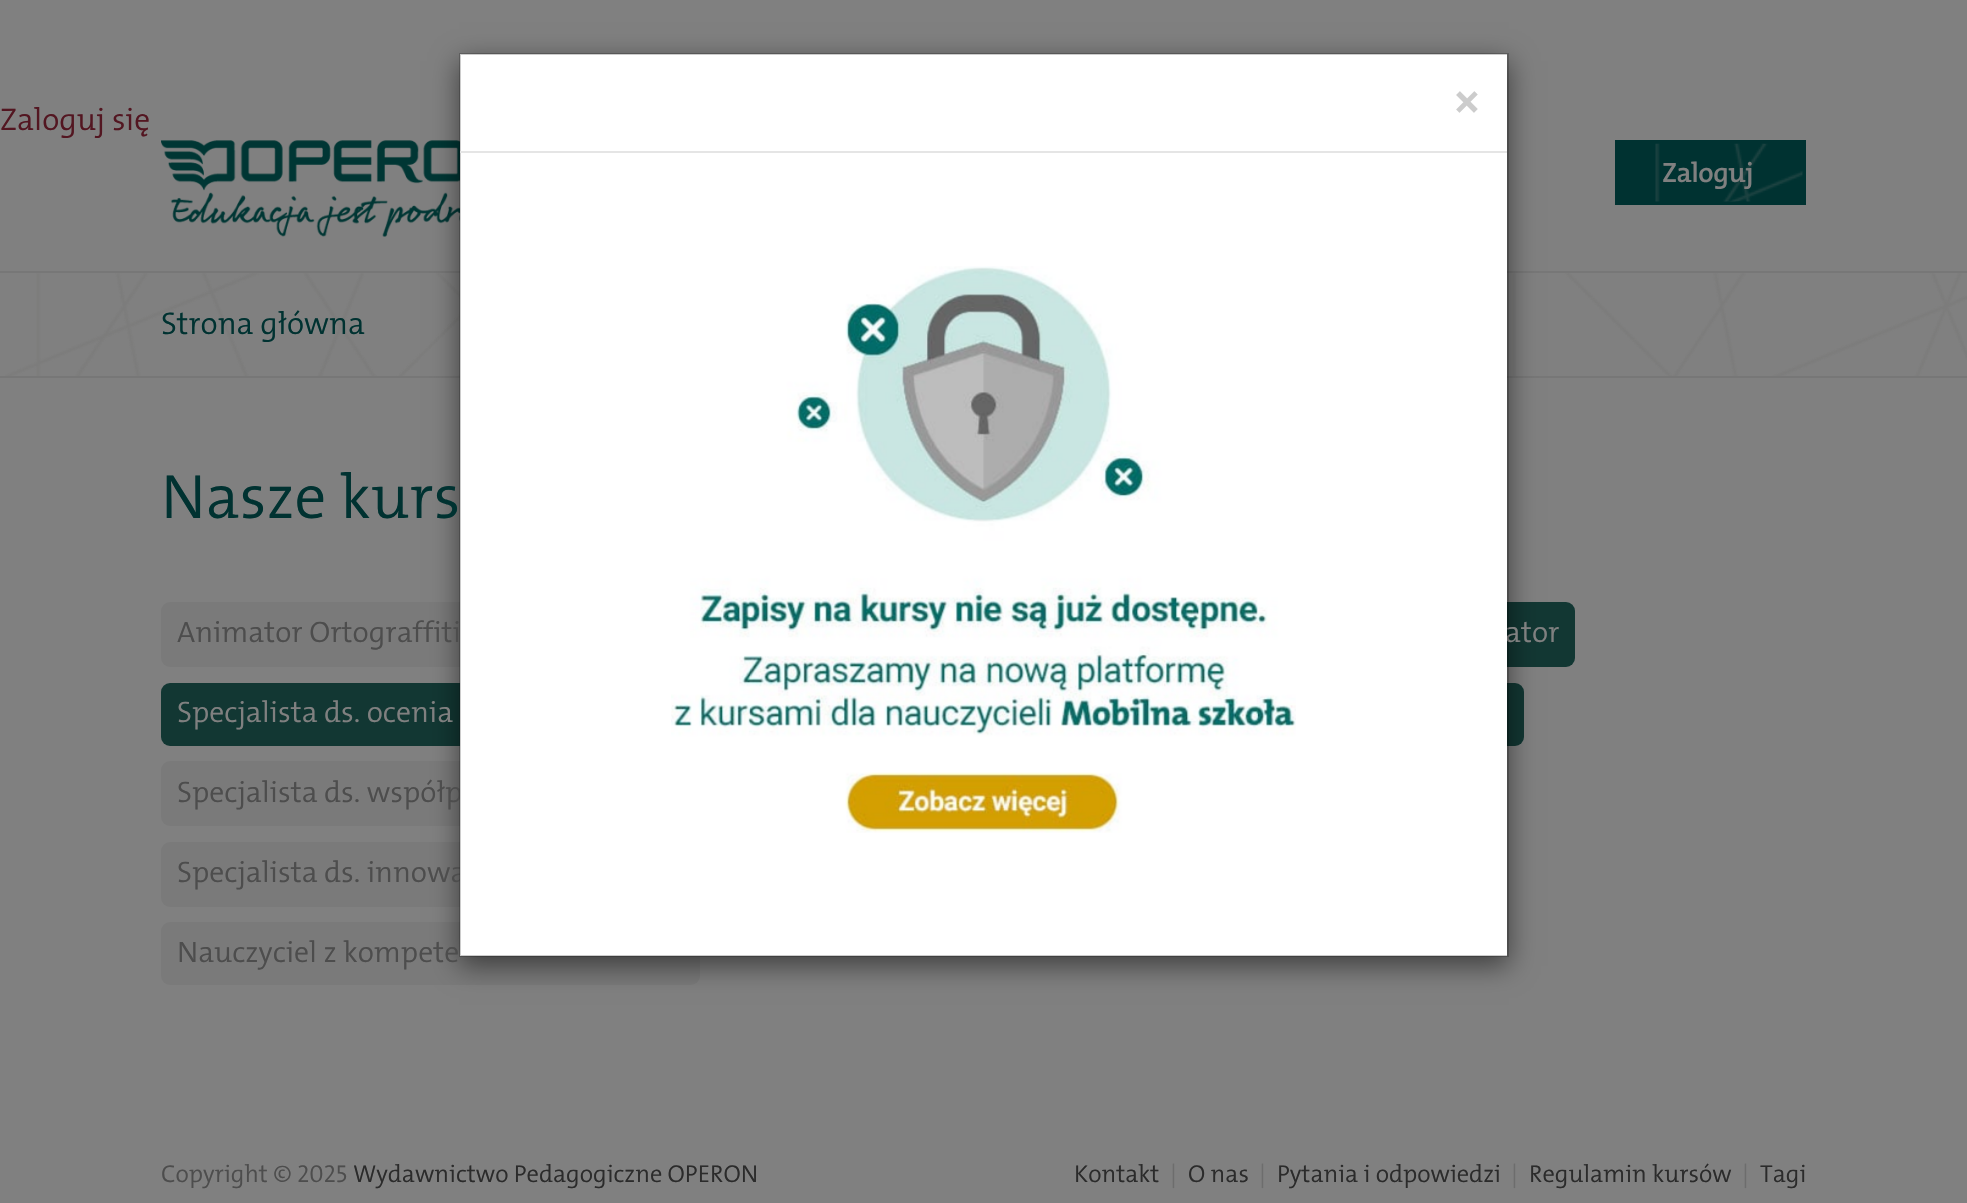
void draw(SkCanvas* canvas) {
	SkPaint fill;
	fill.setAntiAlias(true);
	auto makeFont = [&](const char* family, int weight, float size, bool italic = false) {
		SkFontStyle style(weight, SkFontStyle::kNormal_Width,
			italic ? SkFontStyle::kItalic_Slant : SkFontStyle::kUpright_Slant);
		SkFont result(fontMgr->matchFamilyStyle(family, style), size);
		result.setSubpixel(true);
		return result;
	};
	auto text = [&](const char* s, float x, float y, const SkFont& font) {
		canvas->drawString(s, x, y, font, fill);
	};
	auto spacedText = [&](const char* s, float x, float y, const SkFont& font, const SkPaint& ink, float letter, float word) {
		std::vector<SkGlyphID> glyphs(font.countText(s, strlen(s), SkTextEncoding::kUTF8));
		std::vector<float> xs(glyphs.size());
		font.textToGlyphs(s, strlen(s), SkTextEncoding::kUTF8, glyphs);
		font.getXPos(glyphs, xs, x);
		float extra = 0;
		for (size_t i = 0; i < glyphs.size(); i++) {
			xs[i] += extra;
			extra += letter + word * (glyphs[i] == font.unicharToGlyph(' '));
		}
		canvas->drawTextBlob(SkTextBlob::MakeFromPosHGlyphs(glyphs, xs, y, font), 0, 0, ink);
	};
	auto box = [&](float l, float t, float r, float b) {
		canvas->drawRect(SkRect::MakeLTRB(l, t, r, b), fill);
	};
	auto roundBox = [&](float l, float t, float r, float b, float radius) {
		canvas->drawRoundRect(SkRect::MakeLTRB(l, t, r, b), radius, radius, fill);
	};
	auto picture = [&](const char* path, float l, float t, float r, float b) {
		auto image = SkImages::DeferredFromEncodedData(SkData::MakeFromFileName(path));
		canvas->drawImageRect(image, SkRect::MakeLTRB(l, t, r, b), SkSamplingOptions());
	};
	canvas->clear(0xFF808080);
	picture("image1.png", 161, 140, 460, 237);
	fill.setColor(0xFF777777);
	box(0, 271, 1967, 273);
	box(0, 376, 1967, 378);
	picture("image3.png", 5, 273, 1967, 376);
	fill.setColor(0xFF7A7A7A);
	roundBox(161, 602, 476, 667, 9);
	fill.setColor(0xFF123733);
	roundBox(1199, 602, 1575, 667, 9);
	roundBox(161, 683, 707, 746, 9);
	roundBox(998, 683, 1524, 746, 9);
	fill.setColor(0xFF7A7A7A);
	roundBox(161, 761, 690, 826, 9);
	roundBox(161, 842, 511, 907, 9);
	roundBox(161, 922, 700, 985, 9);
	fill.setColor(0x80000000);
	fill.setMaskFilter(SkMaskFilter::MakeBlur(kNormal_SkBlurStyle, 13));
	canvas->drawRect(SkRect::MakeLTRB(459, 61, 1509, 966), fill);
	fill.setMaskFilter(nullptr);
	fill.setColor(0xFF003231);
	box(1615, 140, 1806, 205);
	auto font1 = makeFont("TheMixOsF", 300, 31.5f);
	fill.setColor(0xFF531621);
	text("Zaloguj się", 0, 130, font1);
	auto font2 = makeFont("TheMixOsF", 600, 28);
	fill.setColor(0xFF808080);
	spacedText("Zaloguj", 1662, 182, font2, fill, -0.5f, 0);
	picture("image2.png", 1655, 143, 1803, 202);
	fill.setColor(0xFF003231);
	text("Strona główna", 161, 334, font1);
	auto font3 = makeFont("TheMixOsF", 300, 63);
	text("Nasze kurs", 161, 518, font3);
	auto font4 = makeFont("TheMixOsF", 300, 29.75f);
	fill.setColor(0xFF4D4D4D);
	text("Animator Ortograffiti", 177, 642, font4);
	fill.setColor(0xFF808080);
	text("ator", 1505, 642, font4);
	text("Specjalista ds. ocenia", 177, 722, font4);
	fill.setColor(0xFF4D4D4D);
	text("Specjalista ds. współp", 177, 802, font4);
	text("Specjalista ds. innowa", 177, 882, font4);
	fill.setColor(0xFFFFFFFF);
	box(460, 54, 1507, 956);
	fill.setStyle(SkPaint::kStroke_Style);
	fill.setStrokeWidth(2);
	fill.setColor(0x33000000);
	canvas->drawRect(SkRect::MakeLTRB(460, 54, 1508, 956), fill);
	picture("image0.png", 671, 266, 1296, 833);
	auto font5 = makeFont("TheMixOsF", 700, 47);
	fill.setStyle(SkPaint::kFill_Style);
	fill.setColor(0xFFCCCCCC);
	text("×", 1454, 116, font5);
	fill.setColor(0xFFE5E5E5);
	box(460, 151, 1507, 153);
	fill.setColor(0xFF4D4D4D);
	text("Nauczyciel z kompete", 177, 962, font4);
	auto font6 = makeFont("TheMixOsF", 300, 24.5f);
	text("Copyright © 2025", 161, 1182, font6);
	fill.setColor(0xFF2B2B2B);
	text("Wydawnictwo Pedagogiczne OPERON", 353, 1182, font6);
	text("Kontakt", 1074, 1182, font6);
	fill.setColor(0xFF6D6D6D);
	text("|", 1170, 1182, font6);
	fill.setColor(0xFF2B2B2B);
	text("O nas", 1188, 1182, font6);
	fill.setColor(0xFF6D6D6D);
	text("|", 1259, 1182, font6);
	fill.setColor(0xFF2B2B2B);
	text("Pytania i odpowiedzi", 1277, 1182, font6);
	fill.setColor(0xFF6D6D6D);
	text("|", 1511, 1182, font6);
	fill.setColor(0xFF2B2B2B);
	text("Regulamin kursów", 1529, 1182, font6);
	fill.setColor(0xFF6D6D6D);
	text("|", 1742, 1182, font6);
	fill.setColor(0xFF2B2B2B);
	text("Tagi", 1760, 1182, font6);
}
